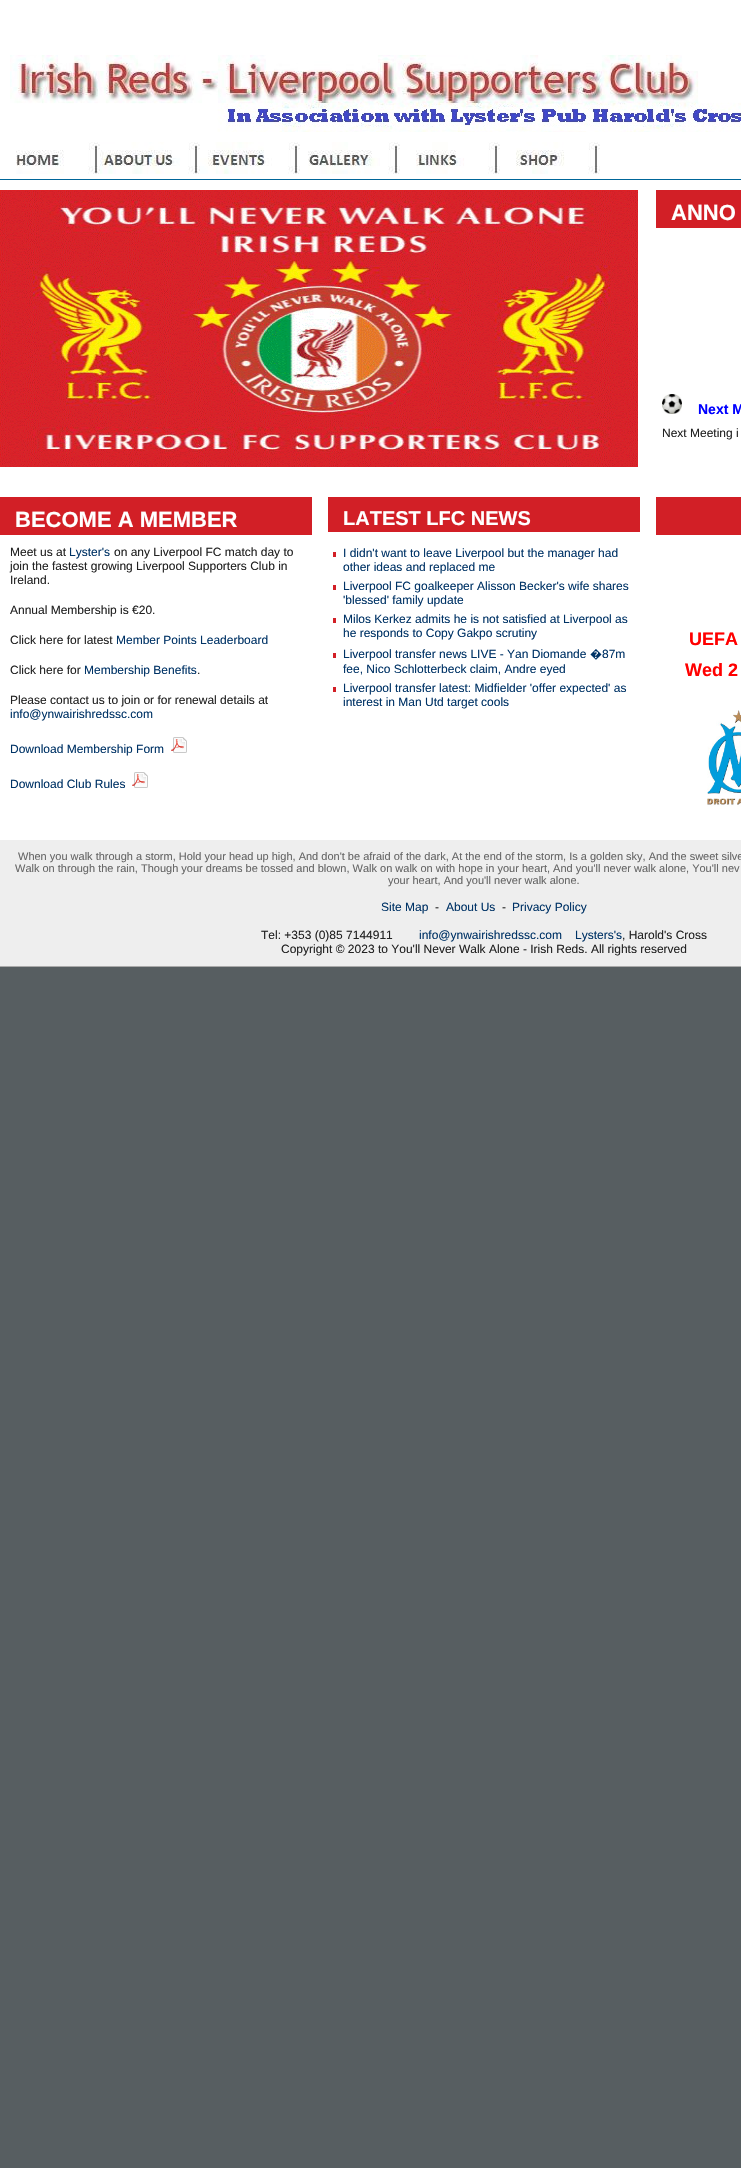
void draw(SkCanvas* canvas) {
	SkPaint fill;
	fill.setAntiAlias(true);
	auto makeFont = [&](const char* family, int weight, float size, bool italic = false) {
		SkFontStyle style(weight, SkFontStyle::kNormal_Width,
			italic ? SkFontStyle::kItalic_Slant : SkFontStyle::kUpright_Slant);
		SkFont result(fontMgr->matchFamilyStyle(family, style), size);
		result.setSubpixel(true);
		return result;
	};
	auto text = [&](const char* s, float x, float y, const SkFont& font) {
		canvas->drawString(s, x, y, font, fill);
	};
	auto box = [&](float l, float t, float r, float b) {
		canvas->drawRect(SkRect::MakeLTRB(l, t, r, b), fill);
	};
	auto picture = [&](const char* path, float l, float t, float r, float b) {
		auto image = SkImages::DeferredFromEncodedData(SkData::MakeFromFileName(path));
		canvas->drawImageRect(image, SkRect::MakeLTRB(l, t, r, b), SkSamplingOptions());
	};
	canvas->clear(0xFF575E61);
	fill.setColor(0xFFFFFFFF);
	box(0, 0, 741, 840);
	picture("image0.png", 10, 55, 741, 132);
	fill.setColor(0xFF006699);
	box(0, 179, 741, 180);
	picture("image1.png", 16, 142, 100, 174);
	picture("image2.png", 100, 142, 200, 174);
	picture("image3.png", 200, 142, 300, 174);
	picture("image4.png", 308, 142, 400, 174);
	picture("image5.png", 416, 142, 500, 174);
	picture("image6.png", 516, 142, 600, 174);
	picture("image7.png", 0, 190, 638, 467);
	fill.setColor(0xFFD21F26);
	box(656, 190, 741, 228);
	picture("image8.png", 662, 394, 682, 414);
	box(0, 497, 312, 535);
	picture("image9.png", 171, 737, 187, 753);
	picture("image9.png", 132, 772, 148, 788);
	box(328, 497, 640, 532);
	box(333, 552, 336, 557);
	box(333, 585, 336, 590);
	box(333, 618, 336, 623);
	box(333, 653, 336, 658);
	box(333, 687, 336, 692);
	box(656, 497, 741, 535);
	picture("image10.png", 707, 710, 741, 809);
	fill.setColor(0xFFEEEEEE);
	box(0, 840, 741, 966);
	fill.setColor(0xFFAAAAAA);
	box(0, 966, 741, 967);
	auto font1 = makeFont("Liberation Sans", 700, 22);
	fill.setColor(0xFFFFFFFF);
	text("ANNO", 671, 220, font1);
	auto font2 = makeFont("Liberation Sans", 700, 14);
	fill.setColor(0xFF0000FF);
	text("Next M", 698, 414, font2);
	auto font3 = makeFont("Liberation Sans", 400, 12);
	fill.setColor(0xFF222222);
	text("Next Meeting i", 662, 437, font3);
	fill.setColor(0xFFFFFFFF);
	text("BECOME A MEMBER", 15, 527, font1);
	fill.setColor(0xFF222222);
	text("Meet us at", 10, 556, font3);
	fill.setColor(0xFF003366);
	text("Lyster's", 69, 556, font3);
	fill.setColor(0xFF222222);
	text("on any Liverpool FC match day to", 114, 556, font3);
	text("join the fastest growing Liverpool Supporters Club in", 10, 570, font3);
	text("Ireland.", 10, 584, font3);
	text("Annual Membership is €20.", 10, 614, font3);
	text("Click here for latest", 10, 644, font3);
	fill.setColor(0xFF003366);
	text("Member Points Leaderboard", 116, 644, font3);
	fill.setColor(0xFF222222);
	text("Click here for", 10, 674, font3);
	fill.setColor(0xFF003366);
	text("Membership Benefits", 84, 674, font3);
	fill.setColor(0xFF222222);
	text(".", 197, 674, font3);
	text("Please contact us to join or for renewal details at", 10, 704, font3);
	fill.setColor(0xFF003366);
	text("info@ynwairishredssc.com", 10, 718, font3);
	text("Download Membership Form", 10, 753, font3);
	text("Download Club Rules", 10, 788, font3);
	auto font4 = makeFont("Liberation Sans", 700, 20);
	fill.setColor(0xFFFFFFFF);
	text("LATEST LFC NEWS", 343, 525, font4);
	fill.setColor(0xFF003366);
	text("I didn't want to leave Liverpool but the manager had", 343, 557, font3);
	text("other ideas and replaced me", 343, 571, font3);
	text("Liverpool FC goalkeeper Alisson Becker's wife shares", 343, 590, font3);
	text("'blessed' family update", 343, 604, font3);
	text("Milos Kerkez admits he is not satisfied at Liverpool as", 343, 623, font3);
	text("he responds to Copy Gakpo scrutiny", 343, 637, font3);
	text("Liverpool transfer news LIVE - Yan Diomande", 343, 658, font3);
	auto font5 = makeFont("Noto Sans", 400, 12);
	text("�", 590, 658, font5);
	text("87m", 602, 658, font3);
	text("fee, Nico Schlotterbeck claim, Andre eyed", 343, 673, font3);
	text("Liverpool transfer latest: Midfielder 'offer expected' as", 343, 692, font3);
	text("interest in Man Utd target cools", 343, 706, font3);
	auto font6 = makeFont("Liberation Sans", 700, 18);
	fill.setColor(0xFFFF0000);
	text("UEFA", 689, 645, font6);
	text("Wed 2", 685, 676, font6);
	auto font7 = makeFont("Liberation Sans", 400, 11);
	fill.setColor(0xFF666666);
	text("When you walk through a storm, Hold your head up high, And don't be afraid of the dark, At the end of the storm, Is a golden sky, And the sweet silve", 18, 860, font7);
	text("Walk on through the rain, Though your dreams be tossed and blown, Walk on walk on with hope in your heart, And you'll never walk alone, You'll nev", 15, 872, font7);
	text("your heart, And you'll never walk alone.", 388, 884, font7);
	fill.setColor(0xFF003366);
	text("Site Map", 381, 911, font3);
	fill.setColor(0xFF222222);
	text("-", 435, 911, font3);
	fill.setColor(0xFF003366);
	text("About Us", 446, 911, font3);
	fill.setColor(0xFF222222);
	text("-", 502, 911, font3);
	fill.setColor(0xFF003366);
	text("Privacy Policy", 512, 911, font3);
	fill.setColor(0xFF222222);
	text("Tel: +353 (0)85 7144911", 261, 939, font3);
	fill.setColor(0xFF003366);
	text("info@ynwairishredssc.com", 419, 939, font3);
	text("Lysters's", 575, 939, font3);
	fill.setColor(0xFF222222);
	text(", Harold's Cross", 622, 939, font3);
	text("Copyright © 2023 to You'll Never Walk Alone - Irish Reds. All rights reserved", 281, 953, font3);
}
